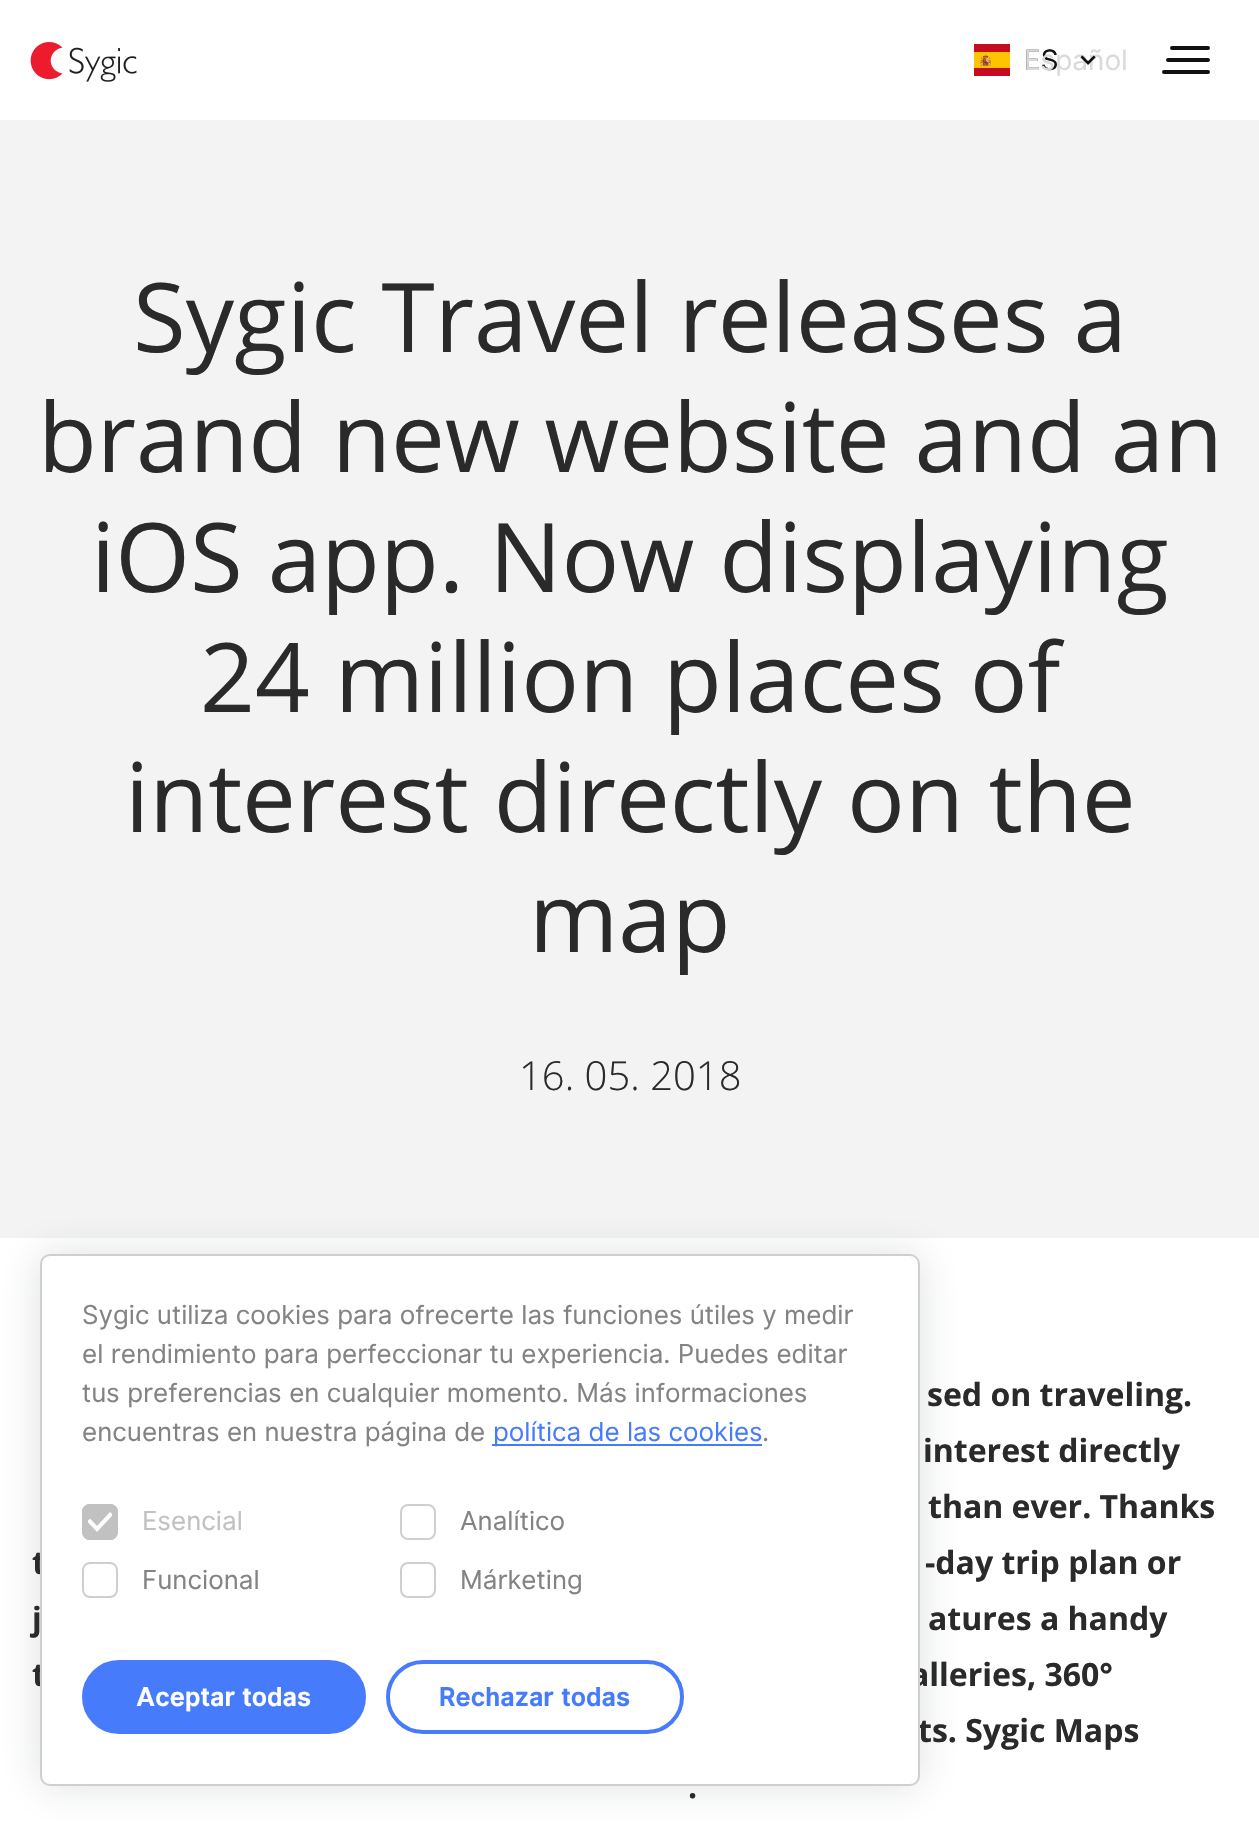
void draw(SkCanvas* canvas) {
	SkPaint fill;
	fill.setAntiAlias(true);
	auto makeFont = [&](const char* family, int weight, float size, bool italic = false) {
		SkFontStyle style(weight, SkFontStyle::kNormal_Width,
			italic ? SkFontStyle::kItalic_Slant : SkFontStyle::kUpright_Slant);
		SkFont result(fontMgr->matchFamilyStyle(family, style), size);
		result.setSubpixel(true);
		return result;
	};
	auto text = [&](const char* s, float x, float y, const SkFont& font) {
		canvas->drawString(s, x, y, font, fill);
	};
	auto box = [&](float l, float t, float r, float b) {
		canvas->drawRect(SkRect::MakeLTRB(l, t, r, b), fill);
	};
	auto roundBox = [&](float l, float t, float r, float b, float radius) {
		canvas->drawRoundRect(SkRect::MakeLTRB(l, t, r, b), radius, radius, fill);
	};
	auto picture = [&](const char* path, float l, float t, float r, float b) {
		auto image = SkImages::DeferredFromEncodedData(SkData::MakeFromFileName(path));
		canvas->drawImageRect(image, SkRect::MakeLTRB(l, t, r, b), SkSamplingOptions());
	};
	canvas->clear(0xFFF3F3F3);
	fill.setColor(0xFFFFFFFF);
	box(0, 0, 1259, 120);
	picture("image0.png", 30, 42, 137, 82);
	picture("image1.png", 974, 44, 1010, 76);
	fill.setColor(0xFF111111);
	roundBox(1170, 46, 1210, 50, 2);
	roundBox(1166, 58, 1210, 62, 2);
	roundBox(1162, 70, 1210, 74, 2);
	fill.setColor(0xFFFFFFFF);
	box(0, 1238, 1259, 1825);
	fill.setColor(0x26202C3C);
	fill.setMaskFilter(SkMaskFilter::MakeBlur(kNormal_SkBlurStyle, 20));
	canvas->drawRoundRect(SkRect::MakeLTRB(40, 1254, 920, 1786), 10, 10, fill);
	fill.setMaskFilter(nullptr);
	auto font1 = makeFont("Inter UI", 400, 28);
	fill.setColor(0xFF111111);
	text("ES", 1024, 70, font1);
	fill.setColor(0xFFDADADA);
	text("Español", 1024, 70, font1);
	picture("image2.png", 1080, 55, 1096, 65);
	auto font2 = makeFont("Open Sans", 400, 96);
	fill.setColor(0xFF2A2A2A);
	text("Sygic Travel releases a", 133, 352, font2);
	text("brand new website and an", 38, 472, font2);
	text("iOS app. Now displaying", 91, 592, font2);
	text("24 million places of", 200, 712, font2);
	text("interest directly on the", 125, 832, font2);
	text("map", 529, 952, font2);
	auto font3 = makeFont("Open Sans", 300, 40);
	text("16. 05. 2018", 519, 1090, font3);
	auto font4 = makeFont("Open Sans", 700, 32);
	text("sed on traveling.", 927, 1406, font4);
	text("interest directly", 923, 1462, font4);
	text("than ever. Thanks", 928, 1518, font4);
	text("t", 32, 1574, font4);
	text("-day trip plan or", 925, 1574, font4);
	text("j", 32, 1630, font4);
	text("atures a handy", 928, 1630, font4);
	text("t", 32, 1686, font4);
	text("alleries, 360°", 910, 1686, font4);
	text("ts. Sygic Maps", 918, 1742, font4);
	text(".", 688, 1798, font4);
	fill.setColor(0xFFFFFFFF);
	canvas->drawRoundRect(SkRect::MakeLTRB(41, 1255, 919, 1785), 9, 9, fill);
	fill.setStyle(SkPaint::kStroke_Style);
	fill.setStrokeWidth(2);
	fill.setColor(0xFFCFCFCF);
	canvas->drawRoundRect(SkRect::MakeLTRB(41, 1255, 919, 1785), 9, 9, fill);
	auto font5 = makeFont("Inter UI", 400, 26);
	fill.setStyle(SkPaint::kFill_Style);
	fill.setColor(0xFF838385);
	text("Sygic utiliza cookies para ofrecerte las funciones útiles y medir", 82, 1324, font5);
	text("el rendimiento para perfeccionar tu experiencia. Puedes editar", 82, 1363, font5);
	text("tus preferencias en cualquier momento. Más informaciones", 82, 1402, font5);
	text("encuentras en nuestra página de", 82, 1441, font5);
	fill.setColor(0xFF467CFC);
	box(492, 1444, 762, 1446);
	text("política de las cookies", 493, 1441, font5);
	fill.setColor(0xFF838385);
	text(".", 762, 1441, font5);
	fill.setColor(0xFFC1C1C2);
	roundBox(82, 1504, 118, 1540, 8);
	canvas->save();
	canvas->clipRect(SkRect::MakeLTRB(88, 1510, 112, 1534));
	fill.setColor(0xFFFFFFFF);
	canvas->drawPath(SkPathBuilder().moveTo(97, 1532).lineTo(87, 1521.5f).lineTo(90, 1518.5f).lineTo(97, 1526).lineTo(110, 1512).lineTo(113, 1515).close().detach(), fill);
	canvas->restore();
	fill.setStyle(SkPaint::kStroke_Style);
	fill.setColor(0xFFC1C1C2);
	canvas->drawRoundRect(SkRect::MakeLTRB(83, 1505, 117, 1539), 7, 7, fill);
	fill.setStyle(SkPaint::kFill_Style);
	text("Esencial", 142, 1530, font5);
	fill.setStyle(SkPaint::kStroke_Style);
	fill.setColor(0xFFCFCFCF);
	canvas->drawRoundRect(SkRect::MakeLTRB(401, 1505, 435, 1539), 7, 7, fill);
	fill.setStyle(SkPaint::kFill_Style);
	fill.setColor(0xFF838385);
	text("Analítico", 460, 1530, font5);
	fill.setStyle(SkPaint::kStroke_Style);
	fill.setColor(0xFFCFCFCF);
	canvas->drawRoundRect(SkRect::MakeLTRB(83, 1563, 117, 1597), 7, 7, fill);
	fill.setStyle(SkPaint::kFill_Style);
	fill.setColor(0xFF838385);
	text("Funcional", 142, 1589, font5);
	fill.setStyle(SkPaint::kStroke_Style);
	fill.setColor(0xFFCFCFCF);
	canvas->drawRoundRect(SkRect::MakeLTRB(401, 1563, 435, 1597), 7, 7, fill);
	fill.setStyle(SkPaint::kFill_Style);
	fill.setColor(0xFF838385);
	text("Márketing", 460, 1589, font5);
	fill.setColor(0xFF467CFC);
	canvas->drawRoundRect(SkRect::MakeLTRB(84, 1662, 364, 1732), 35, 35, fill);
	fill.setStyle(SkPaint::kStroke_Style);
	fill.setStrokeWidth(4);
	canvas->drawRoundRect(SkRect::MakeLTRB(84, 1662, 364, 1732), 35, 35, fill);
	auto font6 = makeFont("Inter UI", 700, 26);
	fill.setStyle(SkPaint::kFill_Style);
	fill.setColor(0xFFFFFFFF);
	text("Aceptar todas", 136, 1706, font6);
	fill.setStyle(SkPaint::kStroke_Style);
	fill.setColor(0xFF467CFC);
	canvas->drawRoundRect(SkRect::MakeLTRB(388, 1662, 682, 1732), 35, 35, fill);
	fill.setStyle(SkPaint::kFill_Style);
	text("Rechazar todas", 439, 1706, font6);
}
